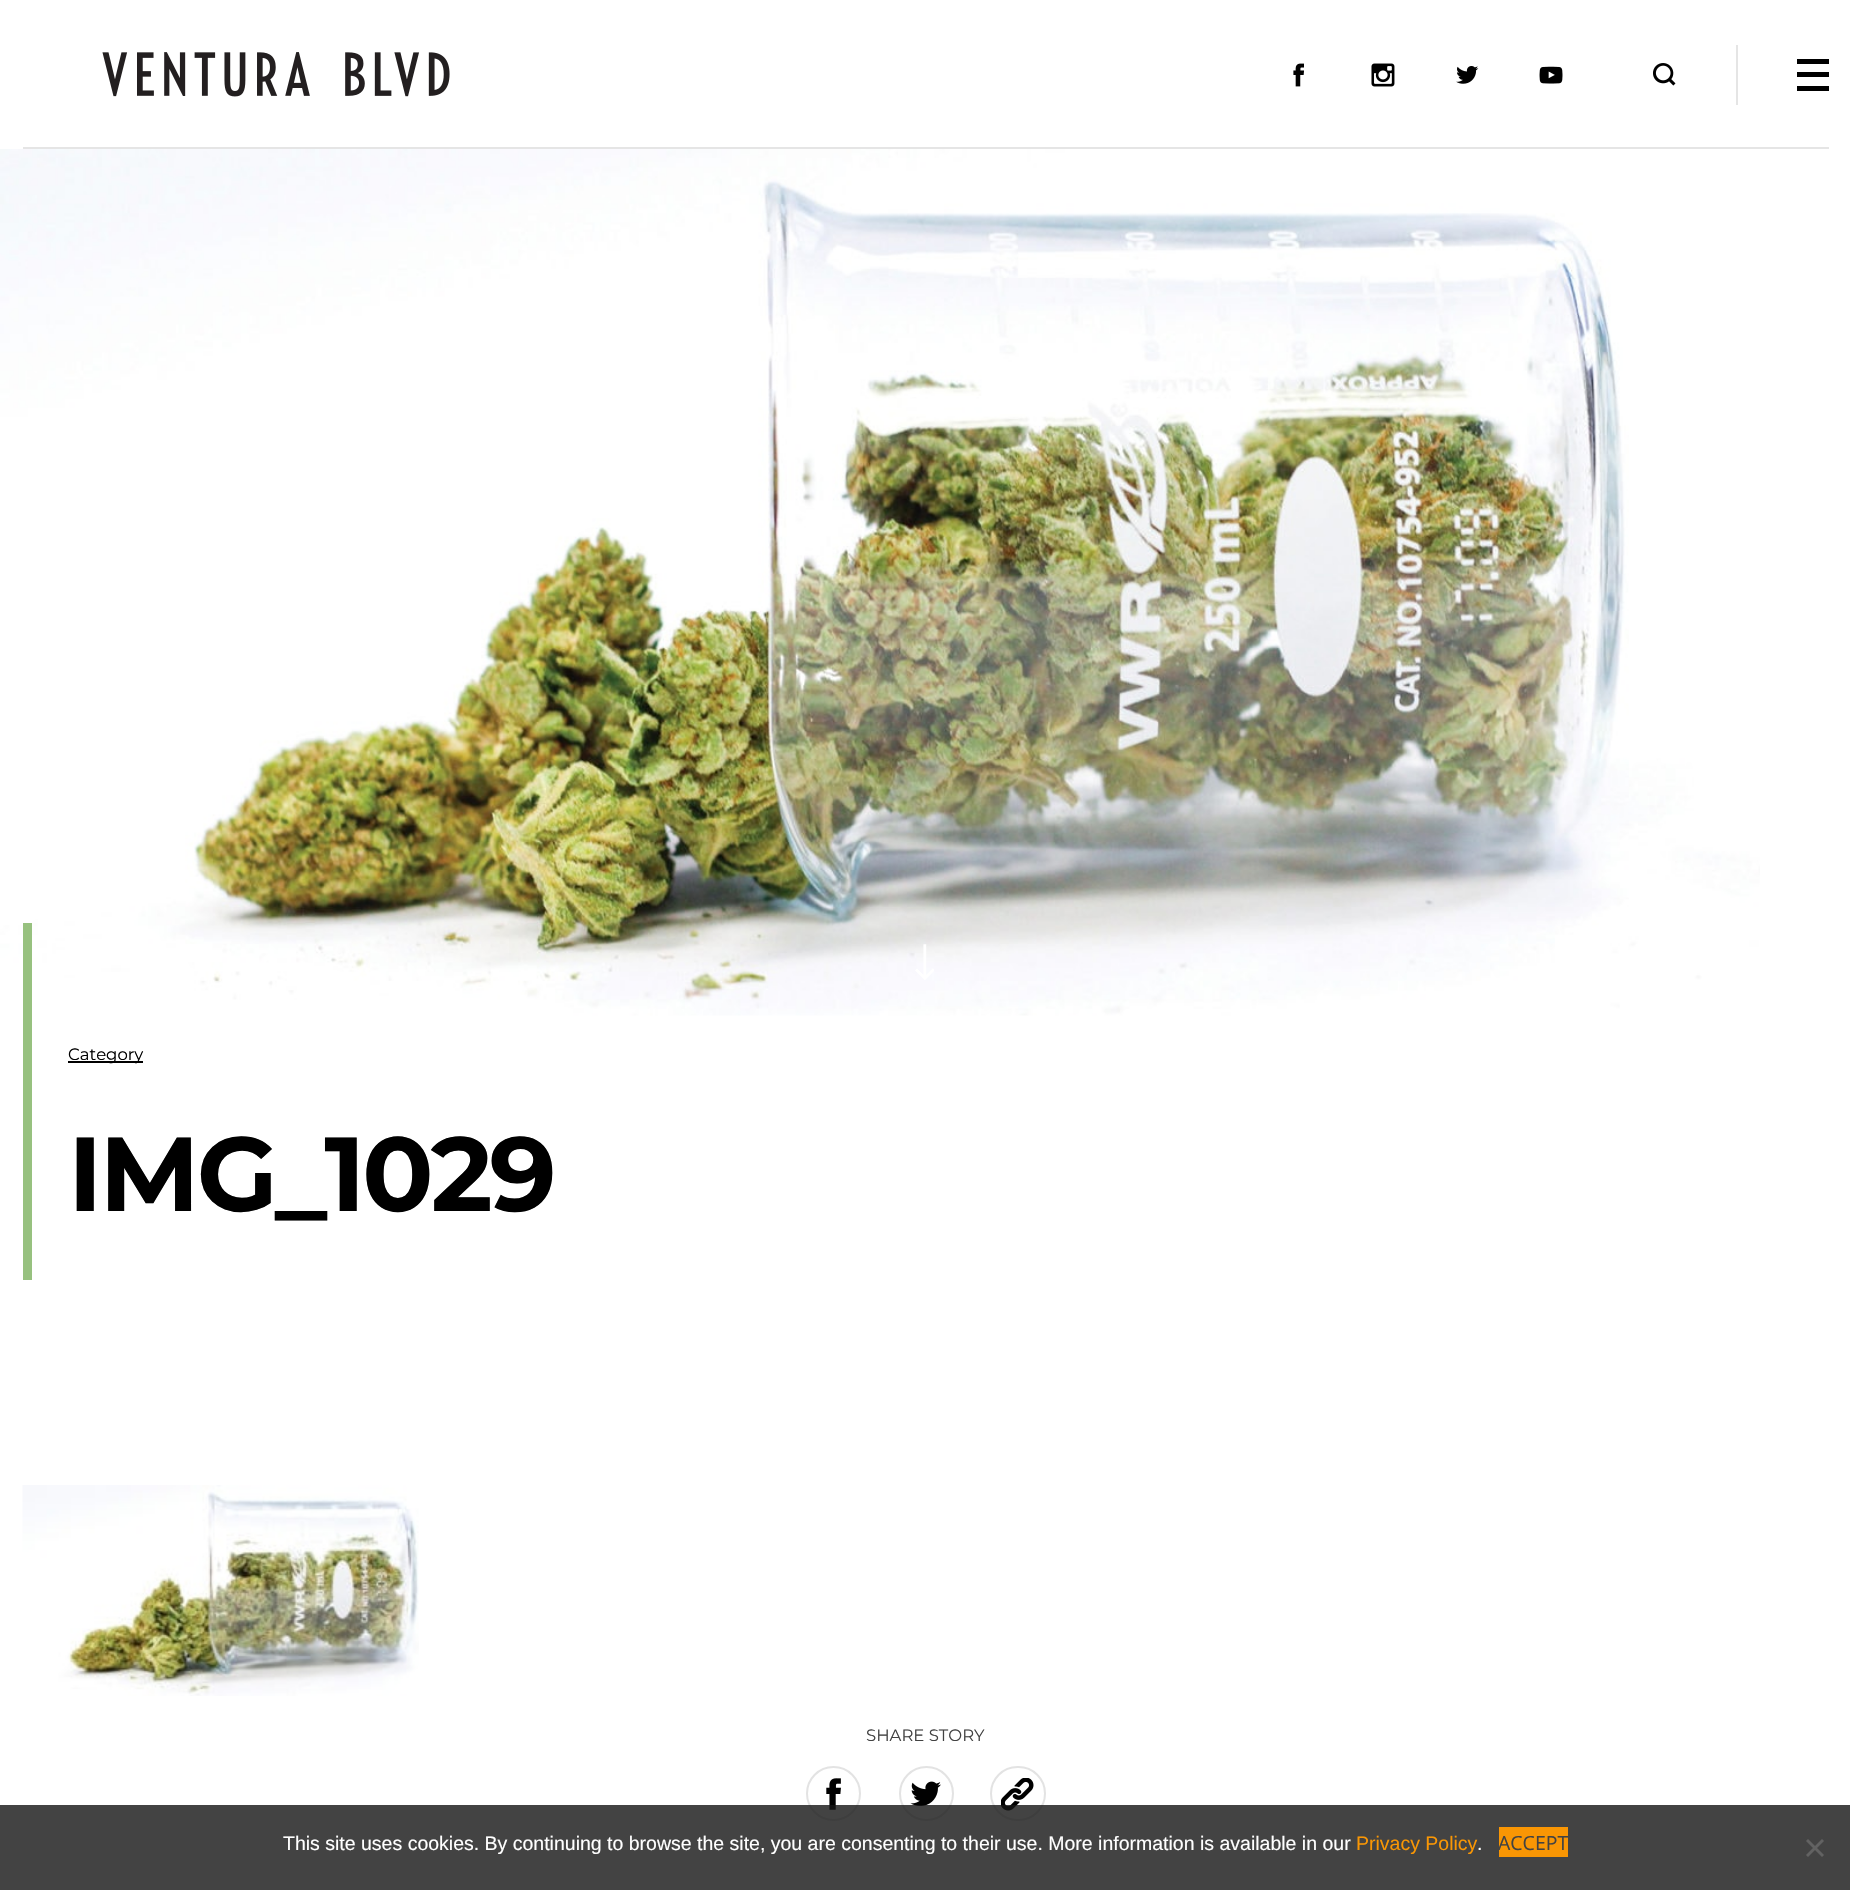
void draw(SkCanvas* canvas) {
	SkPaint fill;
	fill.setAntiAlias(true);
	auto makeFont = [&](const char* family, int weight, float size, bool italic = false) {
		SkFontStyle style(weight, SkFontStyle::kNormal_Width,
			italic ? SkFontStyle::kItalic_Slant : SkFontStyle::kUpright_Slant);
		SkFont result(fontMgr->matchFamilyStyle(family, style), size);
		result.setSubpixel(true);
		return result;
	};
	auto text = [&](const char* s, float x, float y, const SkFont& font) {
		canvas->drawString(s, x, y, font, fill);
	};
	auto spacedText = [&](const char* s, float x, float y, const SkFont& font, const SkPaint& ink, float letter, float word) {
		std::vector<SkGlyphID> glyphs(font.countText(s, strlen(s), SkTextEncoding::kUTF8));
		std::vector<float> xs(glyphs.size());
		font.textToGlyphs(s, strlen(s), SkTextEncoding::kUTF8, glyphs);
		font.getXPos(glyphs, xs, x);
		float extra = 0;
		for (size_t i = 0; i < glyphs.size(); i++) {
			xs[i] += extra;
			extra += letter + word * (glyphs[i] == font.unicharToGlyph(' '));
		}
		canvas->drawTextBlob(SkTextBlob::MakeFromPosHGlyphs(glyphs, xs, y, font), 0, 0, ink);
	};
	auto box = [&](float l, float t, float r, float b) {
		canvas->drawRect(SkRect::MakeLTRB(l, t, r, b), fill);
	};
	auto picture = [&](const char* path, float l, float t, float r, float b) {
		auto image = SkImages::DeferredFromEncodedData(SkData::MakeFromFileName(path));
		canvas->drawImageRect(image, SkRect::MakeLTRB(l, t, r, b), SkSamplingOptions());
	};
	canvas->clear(0xFFFFFFFF);
	picture("image0.png", 102, 52, 450, 97);
	picture("image1.png", 1293, 63, 1304, 87);
	picture("image2.png", 1371, 63, 1395, 87);
	picture("image3.png", 1456, 66, 1479, 84);
	picture("image4.png", 1539, 66, 1563, 84);
	fill.setColor(0xFFE5E5E5);
	box(1736, 45, 1738, 105);
	picture("image5.png", 1653, 63, 1676, 86);
	fill.setColor(0xFF000000);
	box(1797, 59, 1829, 64);
	box(1797, 72, 1829, 77);
	box(1797, 86, 1829, 91);
	fill.setColor(0xFFE5E5E5);
	box(23, 147, 1829, 149);
	picture("image6.png", 0, 149, 1760, 1016);
	picture("image7.png", 915, 944, 934, 980);
	fill.setColor(0xFF97C17F);
	box(23, 923, 32, 1280);
	fill.setColor(0xFF000000);
	box(68, 1061, 143, 1063);
	picture("image8.png", 22, 1485, 419, 1696);
	fill.setStyle(SkPaint::kStroke_Style);
	fill.setStrokeWidth(2);
	fill.setColor(0xFFE3E3E3);
	canvas->drawCircle(833.5f, 1793.5f, 26.5f, fill);
	picture("image9.png", 826, 1778, 841, 1810);
	canvas->drawCircle(926.5f, 1793.5f, 26.5f, fill);
	picture("image10.png", 910, 1781, 941, 1806);
	canvas->drawRoundRect(SkRect::MakeLTRB(991, 1767, 1045, 1820), 26.5f, 26.5f, fill);
	picture("image11.png", 1001, 1778, 1034, 1811);
	fill.setStyle(SkPaint::kFill_Style);
	fill.setColor(0xCC141414);
	box(0, 1805, 1850, 1890);
	fill.setColor(0xFFF99604);
	box(1499, 1827, 1568, 1857);
	fill.setColor(0xFF626262);
	canvas->drawPath(SkPathBuilder().moveTo(1822, 1839).lineTo(1824, 1841).lineTo(1808, 1857).lineTo(1806, 1855).close().detach(), fill);
	canvas->drawPath(SkPathBuilder().moveTo(1806, 1841).lineTo(1808, 1839).lineTo(1824, 1855).lineTo(1822, 1857).close().detach(), fill);
	auto font1 = makeFont("Montserrat", 400, 16.5f);
	fill.setColor(0xFF000000);
	text("Category", 68, 1060, font1);
	auto font2 = makeFont("Montserrat", 700, 105);
	spacedText("IMG_1029", 68, 1211, font2, fill, -3, 0);
	fill.setColor(0xFF424242);
	text("SHARE STORY", 866, 1741, font1);
	auto font3 = makeFont("Liberation Sans", 400, 19.5f);
	fill.setColor(0xFFFFFFFF);
	text("This site uses cookies. By continuing to browse the site, you are consenting to their use. More information is available in our", 283, 1850, font3);
	fill.setColor(0xFFF99604);
	text("Privacy Policy", 1356, 1850, font3);
	fill.setColor(0xFFFFFFFF);
	text(".", 1477, 1850, font3);
	auto font4 = makeFont("Open Sans", 400, 19.5f);
	fill.setColor(0xFF424242);
	text("ACCEPT", 1498, 1850, font4);
}
